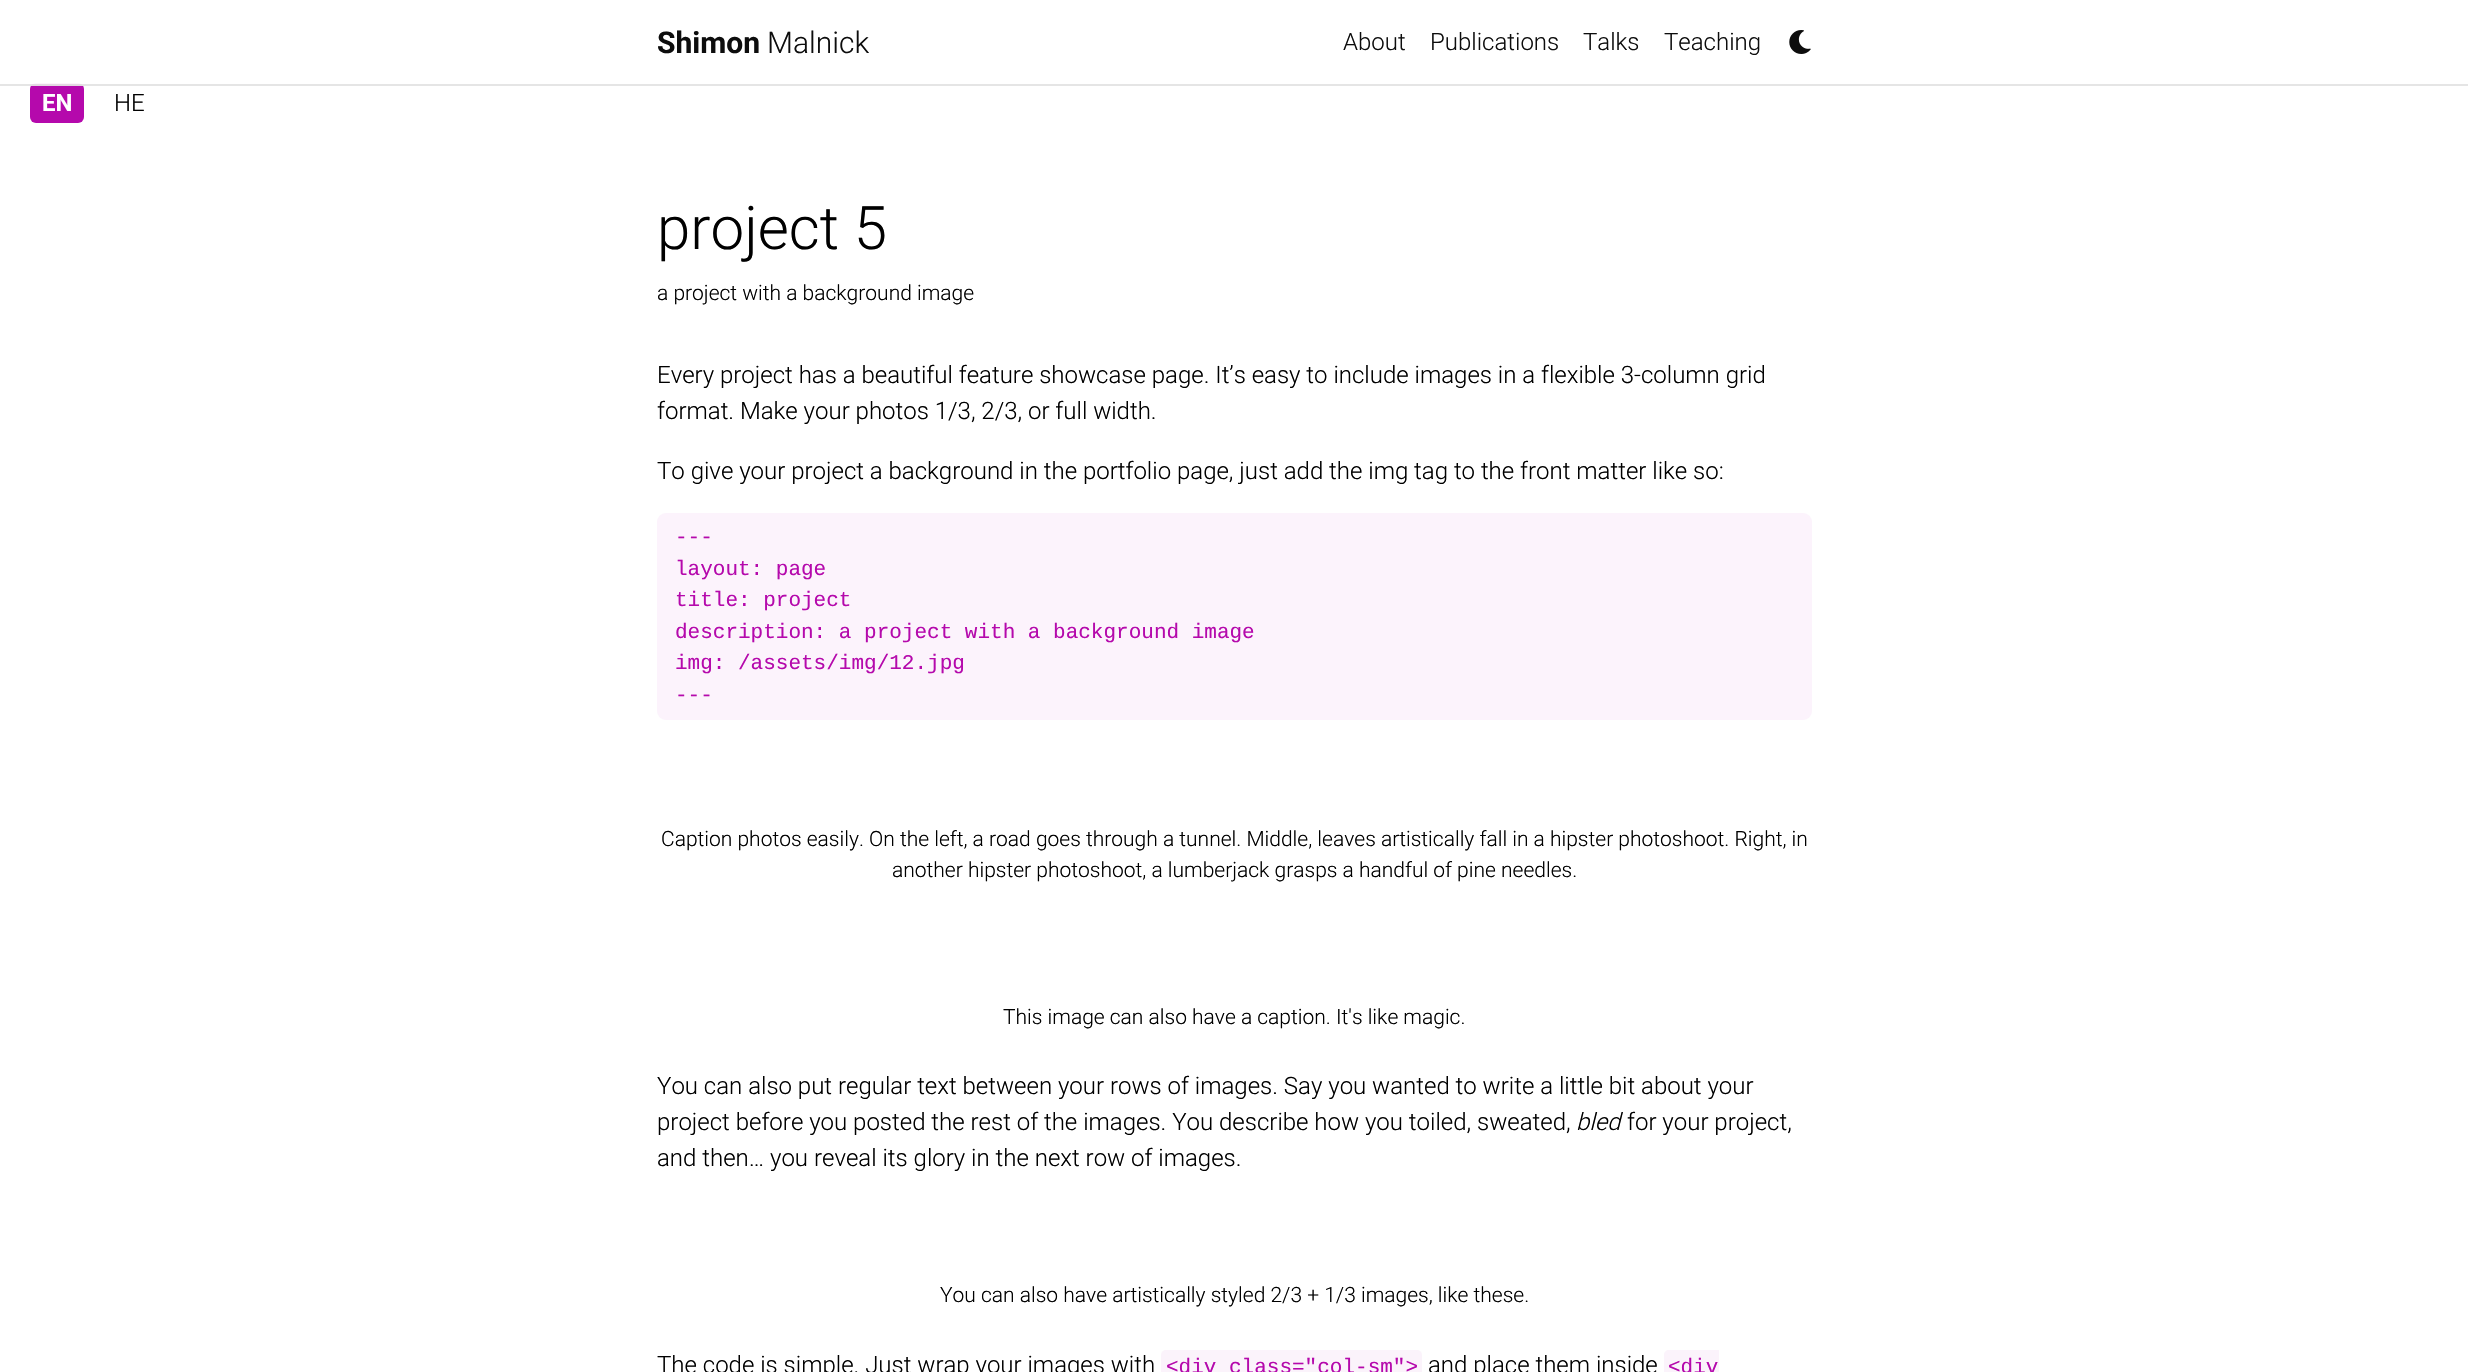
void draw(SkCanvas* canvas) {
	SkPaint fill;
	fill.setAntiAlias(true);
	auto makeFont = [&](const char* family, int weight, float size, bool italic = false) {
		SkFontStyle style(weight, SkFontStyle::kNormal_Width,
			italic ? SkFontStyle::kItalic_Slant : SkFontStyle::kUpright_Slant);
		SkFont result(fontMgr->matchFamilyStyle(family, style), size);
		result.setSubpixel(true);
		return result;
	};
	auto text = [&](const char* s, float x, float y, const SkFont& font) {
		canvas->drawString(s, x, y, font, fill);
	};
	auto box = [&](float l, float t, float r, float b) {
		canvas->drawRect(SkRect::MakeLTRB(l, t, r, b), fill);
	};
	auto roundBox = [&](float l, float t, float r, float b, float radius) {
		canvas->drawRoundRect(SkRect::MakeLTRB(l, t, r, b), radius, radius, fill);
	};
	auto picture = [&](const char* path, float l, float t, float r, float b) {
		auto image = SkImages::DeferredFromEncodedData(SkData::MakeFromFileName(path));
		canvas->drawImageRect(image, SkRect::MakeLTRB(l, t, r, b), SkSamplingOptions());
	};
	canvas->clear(0xFFFFFFFF);
	fill.setColor(0xFFB509AC);
	roundBox(30, 83, 84, 123, 6);
	fill.setColor(0xF2FFFFFF);
	box(30, 83, 84, 86);
	fill.setColor(0x1A000000);
	box(0, 84, 2468, 86);
	picture("image0.png", 1789, 30, 1811, 54);
	fill.setColor(0xFFFCF3FC);
	roundBox(657, 513, 1812, 720, 9);
	fill.setColor(0xFFFBF3FB);
	roundBox(1161, 1350, 1422, 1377, 5);
	canvas->drawPath(SkPathBuilder().moveTo(1669, 1350).lineTo(1719, 1350).lineTo(1719, 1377).lineTo(1669, 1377).cubicTo(1666, 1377, 1664, 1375, 1664, 1372).lineTo(1664, 1355).cubicTo(1664, 1352, 1666, 1350, 1669, 1350).close().detach(), fill);
	auto font1 = makeFont("Roboto", 700, 30);
	fill.setColor(0xFF0D0D0D);
	text("Shimon", 657, 53, font1);
	auto font2 = makeFont("Roboto", 300, 30);
	text("Malnick", 767, 53, font2);
	auto font3 = makeFont("Roboto", 300, 24);
	text("About", 1343, 50, font3);
	text("Publications", 1430, 50, font3);
	text("Talks", 1583, 50, font3);
	text("Teaching", 1664, 50, font3);
	auto font4 = makeFont("Roboto", 700, 24);
	fill.setColor(0xFFFFFFFF);
	text("EN", 42, 111, font4);
	fill.setColor(0xFF000000);
	text("HE", 114, 111, font3);
	auto font5 = makeFont("Roboto", 300, 60);
	text("project 5", 657, 249, font5);
	auto font6 = makeFont("Roboto", 300, 21);
	text("a project with a background image", 657, 300, font6);
	text("Every project has a beautiful feature showcase page. It’s easy to include images in a flexible 3-column grid", 657, 383, font3);
	text("format. Make your photos 1/3, 2/3, or full width.", 657, 419, font3);
	text("To give your project a background in the portfolio page, just add the img tag to the front matter like so:", 657, 479, font3);
	auto font7 = makeFont("Liberation Mono", 400, 21);
	fill.setColor(0xFFB509AC);
	text("---", 675, 543, font7);
	text("layout: page", 675, 575, font7);
	text("title: project", 675, 606, font7);
	text("description: a project with a background image", 675, 638, font7);
	text("img: /assets/img/12.jpg", 675, 669, font7);
	text("---", 675, 701, font7);
	fill.setColor(0xFF000000);
	text("Caption photos easily. On the left, a road goes through a tunnel. Middle, leaves artistically fall in a hipster photoshoot. Right, in", 661, 846, font6);
	text("another hipster photoshoot, a lumberjack grasps a handful of pine needles.", 892, 877, font6);
	text("This image can also have a caption. It's like magic.", 1003, 1024, font6);
	text("You can also put regular text between your rows of images. Say you wanted to write a little bit about your", 657, 1094, font3);
	text("project before you posted the rest of the images. You describe how you toiled, sweated,", 657, 1130, font3);
	auto font8 = makeFont("Roboto", 300, 24, true);
	text("bled", 1576, 1130, font8);
	text("for your project,", 1627, 1130, font3);
	text("and then… you reveal its glory in the next row of images.", 657, 1166, font3);
	text("You can also have artistically styled 2/3 + 1/3 images, like these.", 940, 1302, font6);
	text("The code is simple. Just wrap your images with", 657, 1373, font3);
	fill.setColor(0xFFB509AC);
	text("<div class=\"col-sm\">", 1166, 1373, font7);
	fill.setColor(0xFF000000);
	text("and place them inside", 1428, 1373, font3);
	fill.setColor(0xFFB509AC);
	text("<div", 1668, 1373, font7);
}
